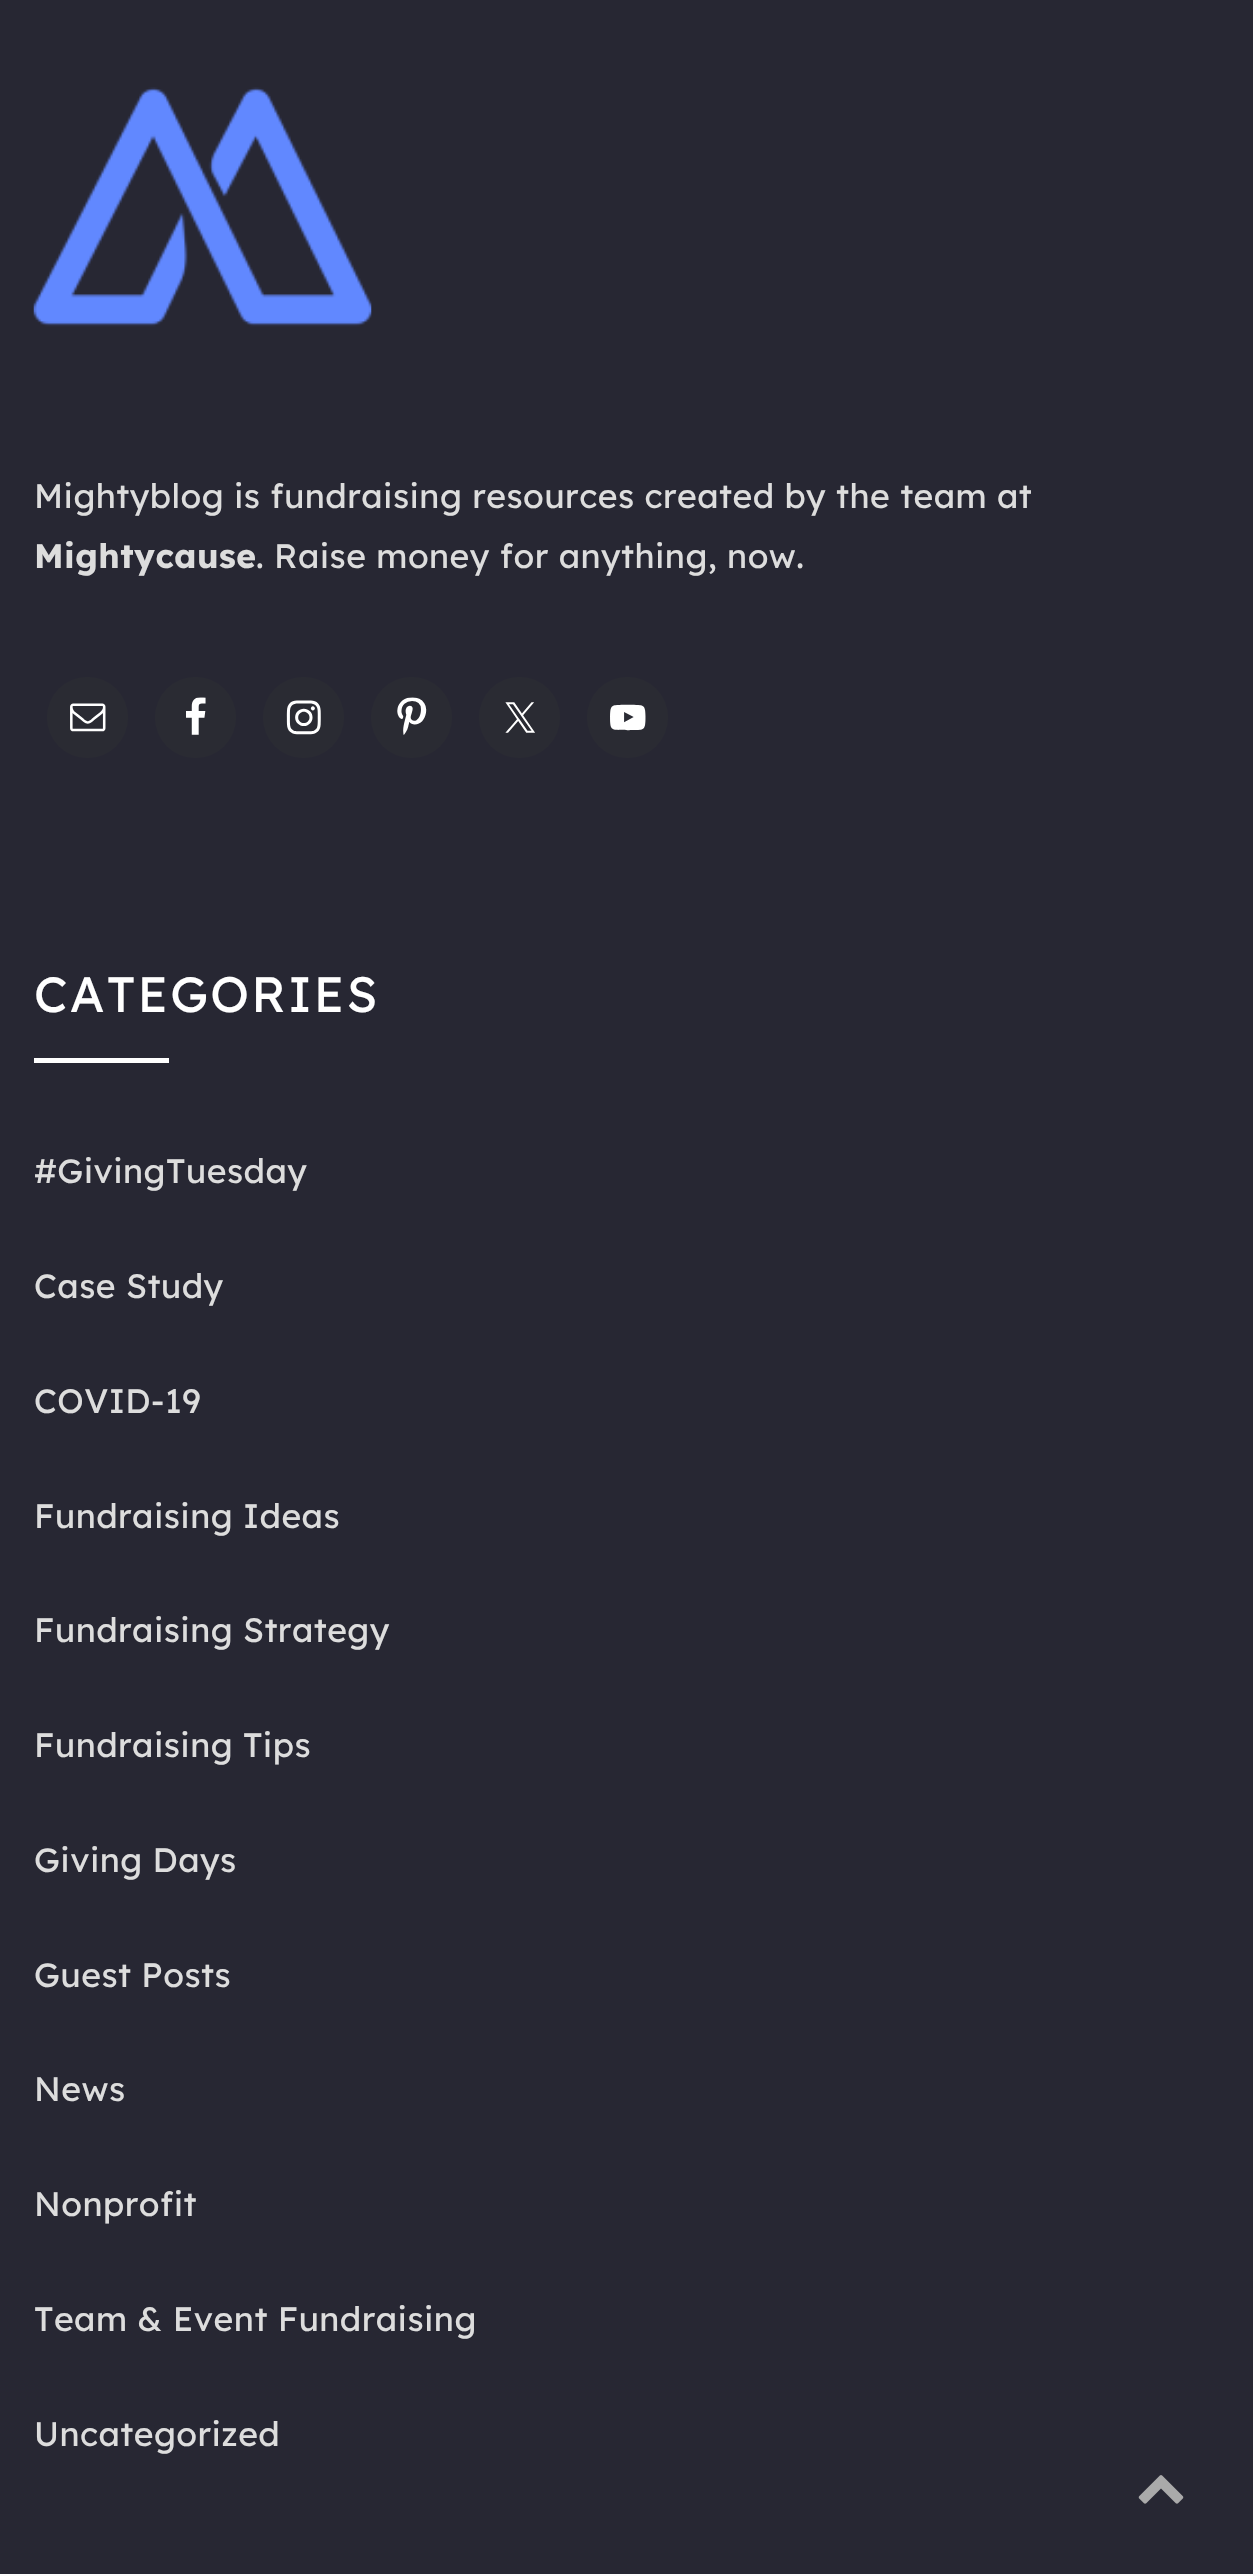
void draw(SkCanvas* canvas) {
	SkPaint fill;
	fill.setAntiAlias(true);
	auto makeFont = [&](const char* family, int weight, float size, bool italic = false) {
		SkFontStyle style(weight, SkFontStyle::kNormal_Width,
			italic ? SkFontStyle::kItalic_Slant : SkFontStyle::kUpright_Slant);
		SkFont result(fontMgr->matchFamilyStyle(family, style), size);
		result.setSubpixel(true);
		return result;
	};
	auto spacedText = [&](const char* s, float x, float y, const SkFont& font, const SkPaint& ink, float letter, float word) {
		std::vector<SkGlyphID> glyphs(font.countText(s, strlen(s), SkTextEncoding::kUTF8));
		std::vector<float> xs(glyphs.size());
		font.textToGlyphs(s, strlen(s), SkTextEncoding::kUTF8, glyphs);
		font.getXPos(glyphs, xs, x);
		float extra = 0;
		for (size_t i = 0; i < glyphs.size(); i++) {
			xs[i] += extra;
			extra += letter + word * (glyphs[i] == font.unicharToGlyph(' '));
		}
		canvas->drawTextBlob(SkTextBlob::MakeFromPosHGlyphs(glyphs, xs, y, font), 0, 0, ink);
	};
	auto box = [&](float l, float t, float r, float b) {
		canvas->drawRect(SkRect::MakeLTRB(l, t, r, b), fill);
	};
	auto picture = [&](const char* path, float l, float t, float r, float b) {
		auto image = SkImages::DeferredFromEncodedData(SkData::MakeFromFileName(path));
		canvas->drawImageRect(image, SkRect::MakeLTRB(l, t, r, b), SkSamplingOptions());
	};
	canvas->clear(0xFF272733);
	picture("image0.png", 33, 87, 372, 327);
	fill.setColor(0xFF2A2B33);
	canvas->drawCircle(87.5f, 717.5f, 40.5f, fill);
	picture("image1.png", 70, 703, 106, 732);
	canvas->drawCircle(195.5f, 717.5f, 40.5f, fill);
	picture("image2.png", 186, 697, 206, 735);
	canvas->drawCircle(303.5f, 717.5f, 40.5f, fill);
	picture("image3.png", 286, 700, 321, 735);
	canvas->drawCircle(411.5f, 717.5f, 40.5f, fill);
	picture("image4.png", 397, 697, 427, 735);
	canvas->drawCircle(519.5f, 717.5f, 40.5f, fill);
	picture("image5.png", 505, 702, 535, 733);
	canvas->drawCircle(627.5f, 717.5f, 40.5f, fill);
	picture("image6.png", 610, 704, 646, 731);
	fill.setColor(0xFFFFFFFF);
	box(34, 1058, 169, 1063);
	picture("image7.png", 1138, 2475, 1184, 2504);
	auto font1 = makeFont("Lexend Deca", 400, 33.75f);
	fill.setColor(0xFFDDDDDD);
	spacedText("Mightyblog is fundraising resources created by the team at", 34, 508, font1, fill, 0.45f, 0);
	auto font2 = makeFont("Lexend Deca", 700, 33.75f);
	spacedText("Mightycause", 34, 568, font2, fill, 0.45f, 0);
	spacedText(". Raise money for anything, now.", 256, 568, font1, fill, 0.45f, 0);
	auto font3 = makeFont("Lexend Deca", 400, 49.5f);
	fill.setColor(0xFFFFFFFF);
	spacedText("CATEGORIES", 34, 1012, font3, fill, 2.25f, 0);
	fill.setColor(0xFFDDDDDD);
	spacedText("#GivingTuesday", 34, 1183, font1, fill, 0.45f, 0);
	spacedText("Case Study", 34, 1298, font1, fill, 0.45f, 0);
	spacedText("COVID-19", 34, 1413, font1, fill, 0.45f, 0);
	spacedText("Fundraising Ideas", 34, 1528, font1, fill, 0.45f, 0);
	spacedText("Fundraising Strategy", 34, 1642, font1, fill, 0.45f, 0);
	spacedText("Fundraising Tips", 34, 1757, font1, fill, 0.45f, 0);
	spacedText("Giving Days", 34, 1872, font1, fill, 0.45f, 0);
	spacedText("Guest Posts", 34, 1987, font1, fill, 0.45f, 0);
	spacedText("News", 34, 2101, font1, fill, 0.45f, 0);
	spacedText("Nonprofit", 34, 2216, font1, fill, 0.45f, 0);
	spacedText("Team & Event Fundraising", 34, 2331, font1, fill, 0.45f, 0);
	spacedText("Uncategorized", 34, 2446, font1, fill, 0.45f, 0);
}
